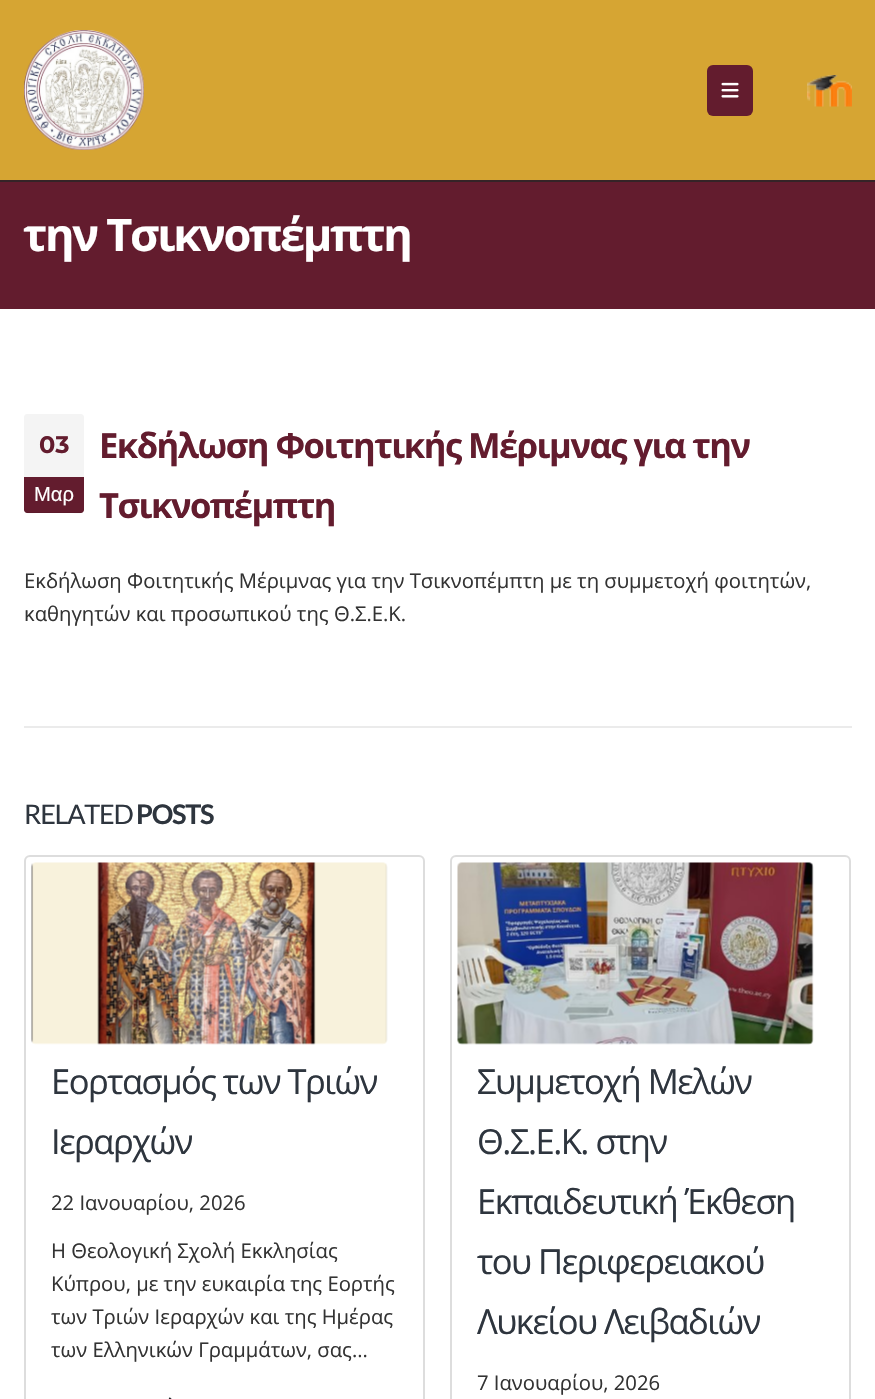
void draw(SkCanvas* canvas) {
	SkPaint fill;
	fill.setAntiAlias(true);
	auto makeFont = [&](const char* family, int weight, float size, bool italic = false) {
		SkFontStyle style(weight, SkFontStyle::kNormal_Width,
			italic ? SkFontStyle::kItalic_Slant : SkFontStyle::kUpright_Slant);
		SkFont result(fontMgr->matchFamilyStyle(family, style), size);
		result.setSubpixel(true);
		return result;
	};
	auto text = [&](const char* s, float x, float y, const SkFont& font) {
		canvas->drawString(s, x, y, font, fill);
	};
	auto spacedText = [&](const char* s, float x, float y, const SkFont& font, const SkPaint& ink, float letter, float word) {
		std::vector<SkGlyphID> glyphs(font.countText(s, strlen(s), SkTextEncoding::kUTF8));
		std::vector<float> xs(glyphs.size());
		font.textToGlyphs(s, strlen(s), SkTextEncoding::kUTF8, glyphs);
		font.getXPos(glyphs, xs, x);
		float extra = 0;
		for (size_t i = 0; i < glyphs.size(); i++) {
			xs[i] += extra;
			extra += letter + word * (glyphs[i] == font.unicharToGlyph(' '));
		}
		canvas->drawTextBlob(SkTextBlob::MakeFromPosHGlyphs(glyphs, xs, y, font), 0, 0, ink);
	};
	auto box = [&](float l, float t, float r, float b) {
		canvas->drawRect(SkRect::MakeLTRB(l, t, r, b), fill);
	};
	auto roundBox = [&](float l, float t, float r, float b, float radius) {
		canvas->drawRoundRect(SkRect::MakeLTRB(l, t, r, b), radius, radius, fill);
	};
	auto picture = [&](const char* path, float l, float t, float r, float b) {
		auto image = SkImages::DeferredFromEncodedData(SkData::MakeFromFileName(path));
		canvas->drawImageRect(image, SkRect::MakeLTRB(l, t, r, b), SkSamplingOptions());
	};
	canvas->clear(0xFFFFFFFF);
	fill.setColor(0xFF631C2E);
	box(0, 180, 875, 309);
	fill.setColor(0xB3000000);
	box(0, 180, 875, 182);
	fill.setColor(0x1AFFFFFF);
	box(0, 180, 875, 182);
	fill.setColor(0xFFD6A533);
	box(0, 0, 875, 180);
	picture("image0.png", 24, 30, 144, 150);
	fill.setColor(0xFF631C2E);
	roundBox(707, 65, 753, 116, 6);
	picture("image1.png", 721, 82, 739, 98);
	picture("image2.png", 807, 75, 852, 107);
	fill.setColor(0xFFF4F4F4);
	canvas->drawPath(SkPathBuilder().moveTo(27, 414).lineTo(81, 414).cubicTo(82.5f, 414, 84, 415.5f, 84, 417).lineTo(84, 477).lineTo(24, 477).lineTo(24, 417).cubicTo(24, 415.5f, 25.5f, 414, 27, 414).close().detach(), fill);
	fill.setColor(0xFF631C2E);
	canvas->drawPath(SkPathBuilder().moveTo(24, 477).lineTo(84, 477).lineTo(84, 510).cubicTo(84, 511.5f, 82.5f, 513, 81, 513).lineTo(27, 513).cubicTo(25.5f, 513, 24, 511.5f, 24, 510).close().detach(), fill);
	fill.setColor(0x12000000);
	canvas->drawPath(SkPathBuilder().moveTo(24, 508).cubicTo(24, 515, 29, 513, 36, 513).lineTo(72, 513).cubicTo(79, 513, 84, 515, 84, 508).cubicTo(84, 510, 83, 512, 81, 512).lineTo(27, 512).cubicTo(25, 512, 24, 510, 24, 508).close().detach(), fill);
	fill.setColor(0xFFEBEBEB);
	box(24, 726, 852, 728);
	fill.setStyle(SkPaint::kStroke_Style);
	fill.setStrokeWidth(2);
	fill.setColor(0xFFDDDDDD);
	canvas->drawRoundRect(SkRect::MakeLTRB(25, 856, 424, 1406), 5, 5, fill);
	picture("image3.png", 31, 862, 388, 1045);
	picture("image4.png", 168, 1397, 172, 1399);
	canvas->drawRoundRect(SkRect::MakeLTRB(451, 856, 850, 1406), 5, 5, fill);
	picture("image5.png", 457, 862, 814, 1045);
	auto font1 = makeFont("Open Sans", 700, 45);
	fill.setStyle(SkPaint::kFill_Style);
	fill.setColor(0xFFFFFFFF);
	spacedText("την Τσικνοπέμπτη", 23, 251, font1, fill, -2.25f, 0);
	auto font2 = makeFont("Open Sans", 700, 34.5f);
	fill.setColor(0xFF631C2E);
	spacedText("Εκδήλωση Φοιτητικής Μέριμνας για την", 99, 458, font2, fill, -1.5f, 0);
	spacedText("Τσικνοπέμπτη", 99, 518, font2, fill, -1.5f, 0);
	auto font3 = makeFont("Open Sans", 400, 20.25f);
	fill.setColor(0xFF333333);
	text("Εκδήλωση Φοιτητικής Μέριμνας για την Τσικνοπέμπτη με τη συμμετοχή φοιτητών,", 24, 588, font3);
	text("καθηγητών και προσωπικού της Θ.Σ.Ε.Κ.", 24, 621, font3);
	auto font4 = makeFont("Montserrat", 700, 24);
	fill.setColor(0xFF631C2E);
	text("03", 39, 453, font4);
	auto font5 = makeFont("Liberation Sans", 400, 20.25f);
	fill.setColor(0xFFFFFFFF);
	text("Μαρ", 34, 501, font5);
	auto font6 = makeFont("Lato", 400, 27);
	fill.setColor(0xFF2E353E);
	spacedText("RELATED", 24, 824, font6, fill, -1.25f, 0);
	auto font7 = makeFont("Lato", 700, 27);
	spacedText("POSTS", 136, 824, font7, fill, -1.25f, 0);
	auto font8 = makeFont("Open Sans", 400, 34.5f);
	spacedText("Εορτασμός των Τριών", 51, 1094, font8, fill, -1.5f, 0);
	spacedText("Ιεραρχών", 51, 1154, font8, fill, -1.5f, 0);
	fill.setColor(0xFF333333);
	text("22 Ιανουαρίου, 2026", 51, 1210, font3);
	text("Η Θεολογική Σχολή Εκκλησίας", 51, 1258, font3);
	text("Κύπρου, με την ευκαιρία της Εορτής", 51, 1291, font3);
	text("των Τριών Ιεραρχών και της Ημέρας", 51, 1324, font3);
	text("των Ελληνικών Γραμμάτων, σας...", 51, 1357, font3);
	fill.setColor(0xFF2E353E);
	spacedText("Συμμετοχή Μελών", 477, 1094, font8, fill, -1.5f, 0);
	spacedText("Θ.Σ.Ε.Κ. στην", 477, 1154, font8, fill, -1.5f, 0);
	spacedText("Εκπαιδευτική Έκθεση", 477, 1214, font8, fill, -1.5f, 0);
	spacedText("του Περιφερειακού", 477, 1274, font8, fill, -1.5f, 0);
	spacedText("Λυκείου Λειβαδιών", 477, 1334, font8, fill, -1.5f, 0);
	fill.setColor(0xFF333333);
	text("7 Ιανουαρίου, 2026", 477, 1390, font3);
}
